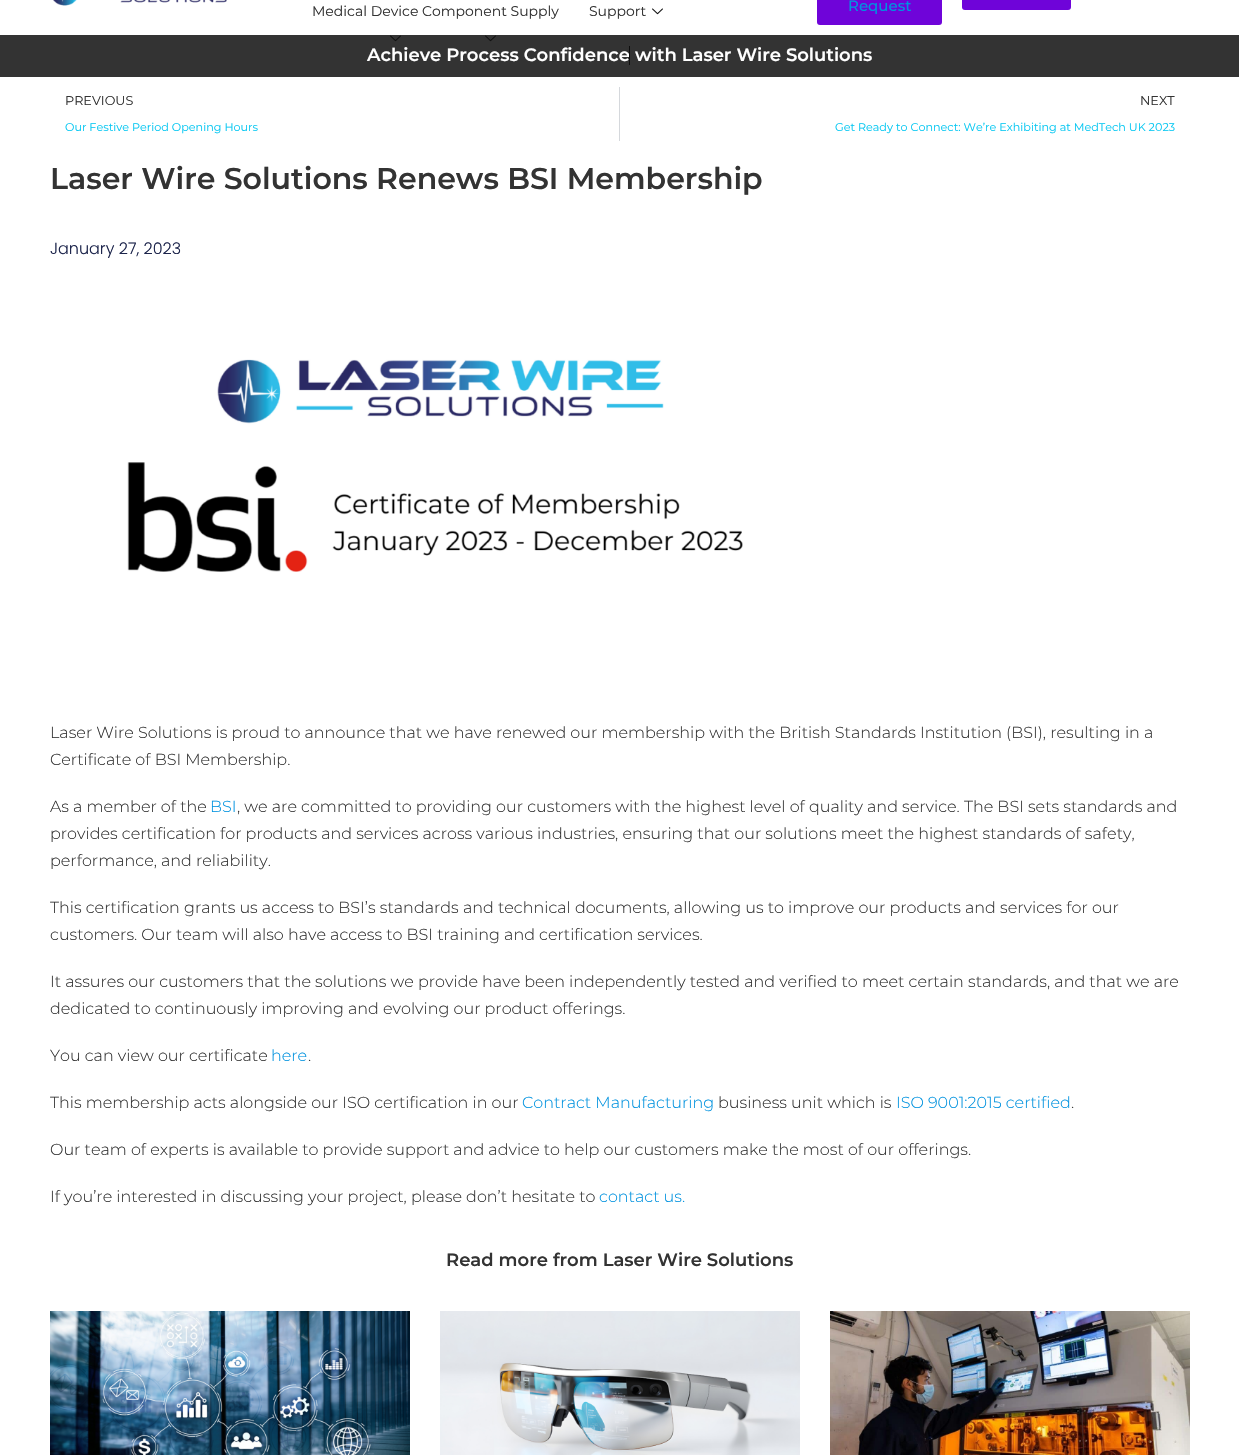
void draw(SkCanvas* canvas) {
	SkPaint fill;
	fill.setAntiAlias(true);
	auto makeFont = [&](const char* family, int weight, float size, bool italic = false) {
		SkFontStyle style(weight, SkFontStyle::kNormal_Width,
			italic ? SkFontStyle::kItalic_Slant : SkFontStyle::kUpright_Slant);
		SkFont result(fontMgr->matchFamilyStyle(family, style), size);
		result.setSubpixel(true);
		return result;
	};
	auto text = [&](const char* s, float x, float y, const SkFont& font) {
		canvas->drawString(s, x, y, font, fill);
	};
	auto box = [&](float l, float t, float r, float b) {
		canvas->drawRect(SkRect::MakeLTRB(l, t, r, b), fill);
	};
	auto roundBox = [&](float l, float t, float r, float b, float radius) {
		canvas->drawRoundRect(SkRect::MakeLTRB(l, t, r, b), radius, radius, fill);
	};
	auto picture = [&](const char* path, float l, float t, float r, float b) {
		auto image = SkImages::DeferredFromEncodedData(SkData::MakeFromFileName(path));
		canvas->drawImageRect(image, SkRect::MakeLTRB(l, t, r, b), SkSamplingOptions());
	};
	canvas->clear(0xFFFFFFFF);
	picture("image0.png", 53, 0, 227, 6);
	picture("image1.png", 652, 8, 663, 15);
	fill.setColor(0xFF333333);
	box(0, 35, 1239, 77);
	picture("image2.png", 390, 35, 401, 42);
	picture("image2.png", 485, 35, 496, 42);
	fill.setColor(0xFF6F04D9);
	roundBox(817, -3, 942, 25, 3);
	roundBox(962, -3, 1071, 10, 3);
	fill.setColor(0xFFD5D8DC);
	box(619, 87, 620, 141);
	picture("image3.png", 127, 359, 743, 572);
	picture("image4.png", 50, 1311, 410, 1455);
	picture("image5.png", 440, 1311, 800, 1455);
	picture("image6.png", 830, 1311, 1190, 1455);
	auto font1 = makeFont("Montserrat", 400, 14);
	fill.setColor(0xFF333333);
	text("Medical Device Component Supply", 312, 16, font1);
	text("Support", 589, 16, font1);
	auto font2 = makeFont("Montserrat", 500, 15);
	fill.setColor(0xFF0092DF);
	text("Request", 848, 11, font2);
	auto font3 = makeFont("Montserrat", 600, 18);
	fill.setColor(0xFFFFFFFF);
	text("Achieve Process Confidence", 367, 61, font3);
	fill.setColor(0xFF0D0D0D);
	box(629, 46, 630, 65);
	fill.setColor(0xFFFFFFFF);
	text("with Laser Wire Solutions", 635, 61, font3);
	auto font4 = makeFont("Montserrat", 400, 12.75f);
	fill.setColor(0xFF333333);
	text("PREVIOUS", 65, 105, font4);
	auto font5 = makeFont("Montserrat", 400, 11.2f);
	fill.setColor(0xFF05C7F2);
	text("Our Festive Period Opening Hours", 65, 131, font5);
	fill.setColor(0xFF333333);
	text("NEXT", 1140, 105, font4);
	fill.setColor(0xFF05C7F2);
	text("Get Ready to Connect: We’re Exhibiting at MedTech UK 2023", 835, 131, font5);
	auto font6 = makeFont("Montserrat", 600, 30);
	fill.setColor(0xFF333333);
	text("Laser Wire Solutions Renews BSI Membership", 50, 189, font6);
	auto font7 = makeFont("Poppins", 300, 16);
	fill.setColor(0xFF1C244B);
	text("January 27, 2023", 50, 254, font7);
	auto font8 = makeFont("Montserrat", 300, 16);
	fill.setColor(0xFF333333);
	text("Laser Wire Solutions is proud to announce that we have renewed our membership with the British Standards Institution (BSI), resulting in a", 50, 738, font8);
	text("Certificate of BSI Membership.", 50, 765, font8);
	text("As a member of the", 50, 812, font8);
	fill.setColor(0xFF0092DF);
	text("BSI", 210, 812, font8);
	fill.setColor(0xFF333333);
	text(", we are committed to providing our customers with the highest level of quality and service. The BSI sets standards and", 237, 812, font8);
	text("provides certification for products and services across various industries, ensuring that our solutions meet the highest standards of safety,", 50, 839, font8);
	text("performance, and reliability.", 50, 866, font8);
	text("This certification grants us access to BSI’s standards and technical documents, allowing us to improve our products and services for our", 50, 913, font8);
	text("customers. Our team will also have access to BSI training and certification services.", 50, 940, font8);
	text("It assures our customers that the solutions we provide have been independently tested and verified to meet certain standards, and that we are", 50, 987, font8);
	text("dedicated to continuously improving and evolving our product offerings.", 50, 1014, font8);
	text("You can view our certificate", 50, 1061, font8);
	fill.setColor(0xFF0092DF);
	text("here", 271, 1061, font8);
	fill.setColor(0xFF333333);
	text(".", 308, 1061, font8);
	text("This membership acts alongside our ISO certification in our", 50, 1108, font8);
	fill.setColor(0xFF0092DF);
	text("Contract Manufacturing", 522, 1108, font8);
	fill.setColor(0xFF333333);
	text("business unit which is", 718, 1108, font8);
	fill.setColor(0xFF0092DF);
	text("ISO 9001:2015 certified", 896, 1108, font8);
	fill.setColor(0xFF333333);
	text(".", 1071, 1108, font8);
	text("Our team of experts is available to provide support and advice to help our customers make the most of our offerings.", 50, 1155, font8);
	text("If you’re interested in discussing your project, please don’t hesitate to", 50, 1202, font8);
	fill.setColor(0xFF0092DF);
	text("contact us.", 599, 1202, font8);
	fill.setColor(0xFF333333);
	text("Read more from Laser Wire Solutions", 446, 1266, font3);
}
